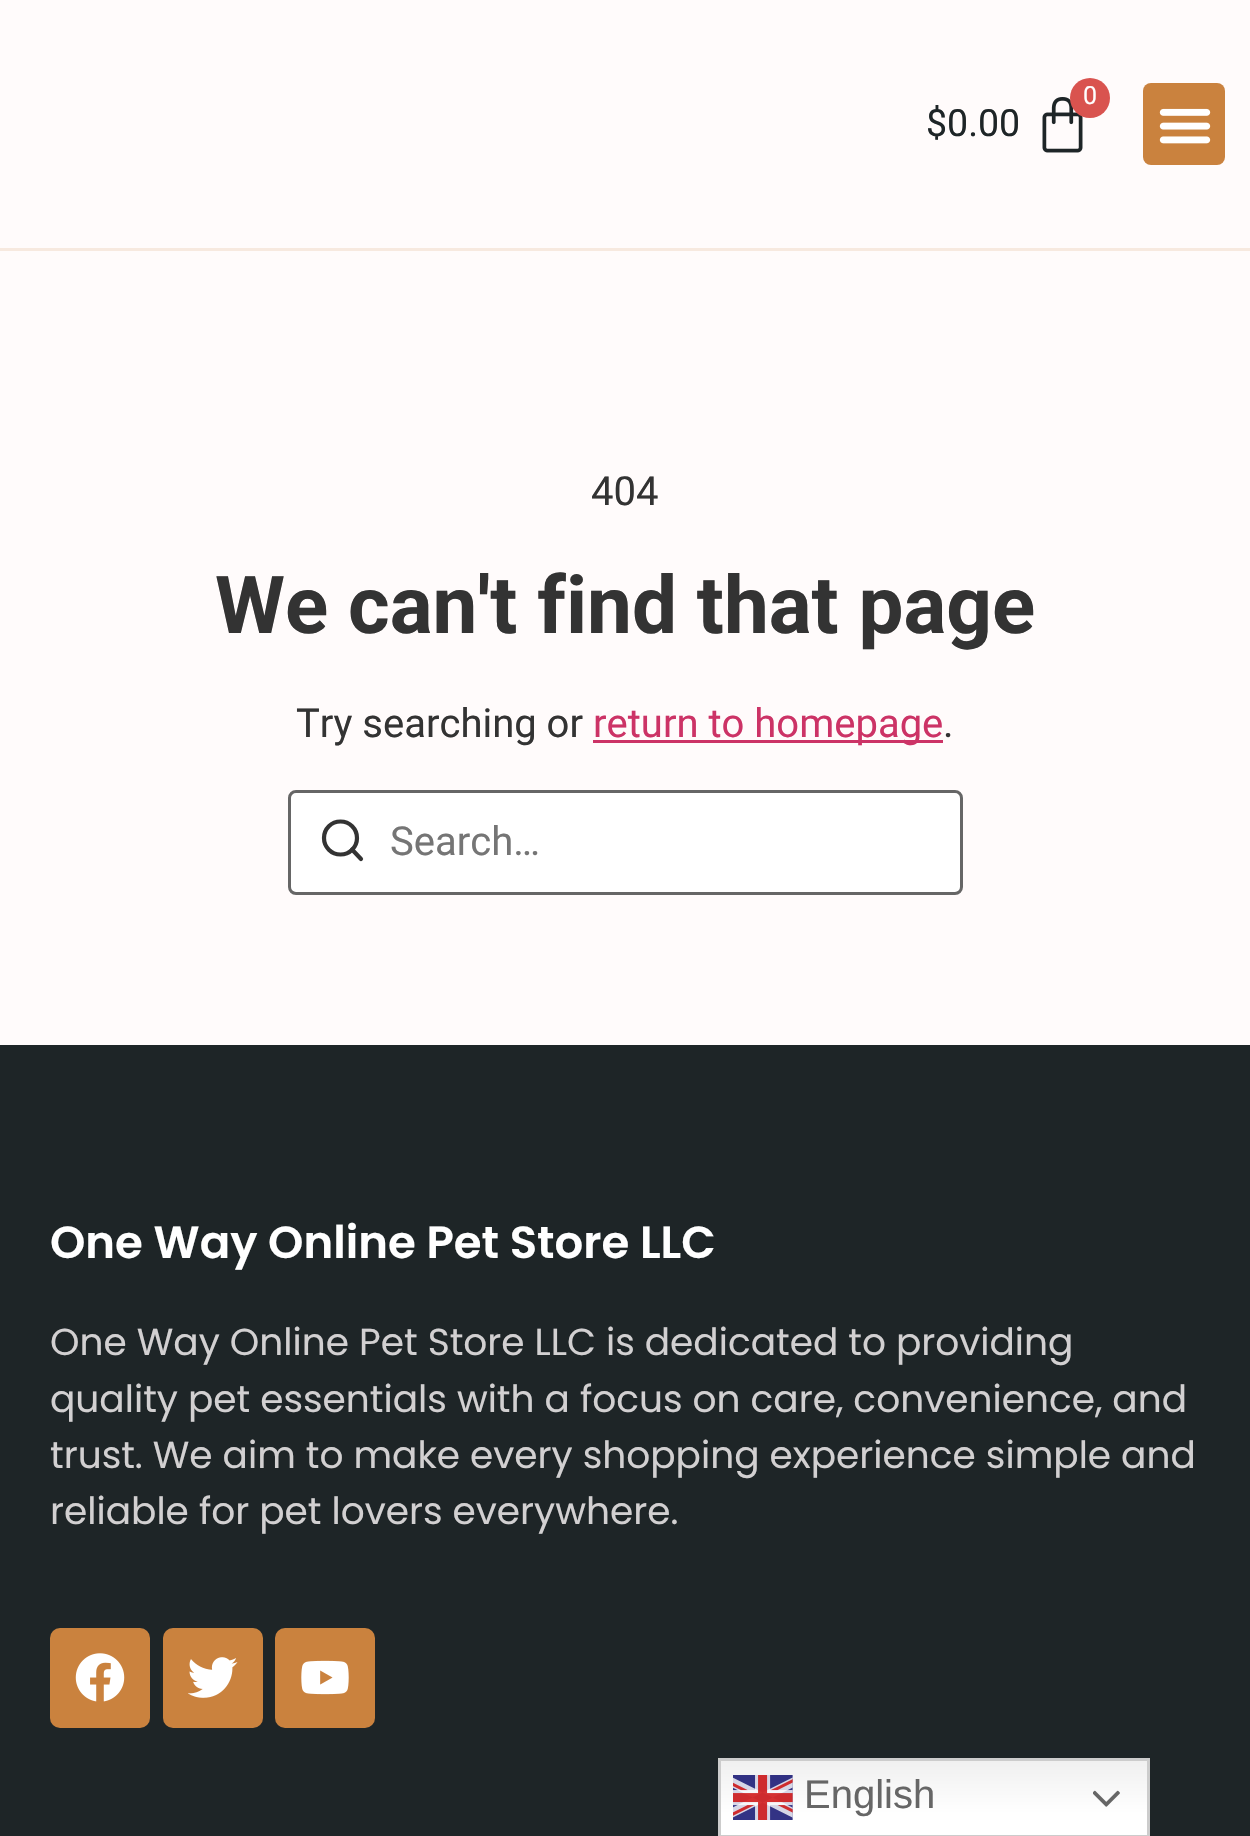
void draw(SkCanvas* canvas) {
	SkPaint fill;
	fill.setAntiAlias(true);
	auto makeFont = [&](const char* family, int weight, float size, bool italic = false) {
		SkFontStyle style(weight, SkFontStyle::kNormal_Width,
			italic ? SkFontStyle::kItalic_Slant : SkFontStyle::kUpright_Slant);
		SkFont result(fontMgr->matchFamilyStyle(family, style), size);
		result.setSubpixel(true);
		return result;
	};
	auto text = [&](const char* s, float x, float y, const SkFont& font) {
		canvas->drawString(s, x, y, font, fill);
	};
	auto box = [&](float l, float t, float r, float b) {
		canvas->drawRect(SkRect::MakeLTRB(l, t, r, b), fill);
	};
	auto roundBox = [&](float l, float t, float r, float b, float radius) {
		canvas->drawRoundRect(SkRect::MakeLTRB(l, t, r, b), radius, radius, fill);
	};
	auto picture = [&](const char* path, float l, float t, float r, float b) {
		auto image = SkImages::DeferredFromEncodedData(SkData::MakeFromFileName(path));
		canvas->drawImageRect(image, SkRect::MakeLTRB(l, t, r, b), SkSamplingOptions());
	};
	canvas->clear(0xFFFFFBFB);
	fill.setColor(0xFFF7E9DF);
	box(0, 248, 1250, 251);
	picture("image0.png", 1042, 97, 1083, 153);
	fill.setColor(0xFFD9534F);
	canvas->drawCircle(1090, 98, 20, fill);
	fill.setColor(0xFFCA823E);
	roundBox(1143, 83, 1225, 165, 8);
	picture("image1.png", 1159, 108, 1211, 144);
	fill.setColor(0xFFCC3366);
	box(593, 740, 943, 743);
	fill.setColor(0xFFFFFFFF);
	canvas->drawRoundRect(SkRect::MakeLTRB(289.5f, 791.5f, 961.5f, 893.5f), 6.5f, 6.5f, fill);
	fill.setStyle(SkPaint::kStroke_Style);
	fill.setStrokeWidth(3);
	fill.setColor(0xFF666666);
	canvas->drawRoundRect(SkRect::MakeLTRB(289.5f, 791.5f, 961.5f, 893.5f), 6.5f, 6.5f, fill);
	fill.setStrokeWidth(4.2f);
	fill.setColor(0xFF333333);
	canvas->drawCircle(340.5f, 838, 16.5f, fill);
	fill.setStrokeCap(SkPaint::kRound_Cap);
	fill.setStrokeJoin(SkPaint::kRound_Join);
	canvas->drawPath(SkPathBuilder().moveTo(361, 859).lineTo(352, 849.5f).detach(), fill);
	fill.setStyle(SkPaint::kFill_Style);
	fill.setColor(0xFF1E2527);
	box(0, 1045, 1250, 1836);
	fill.setColor(0xFFCA823E);
	roundBox(50, 1628, 150, 1728, 10);
	picture("image2.png", 75, 1653, 125, 1702);
	roundBox(163, 1628, 263, 1728, 10);
	picture("image3.png", 188, 1657, 238, 1698);
	roundBox(275, 1628, 375, 1728, 10);
	picture("image4.png", 301, 1660, 349, 1695);
	{
		const SkColor colors[] = {0xFFEFEFEF, 0xFFFFFFFF};
		const float stops[] = {0, 0.7f};
		const SkPoint ends[] = {{934, 1758}, {934, 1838}};
		fill.setShader(SkGradientShader::MakeLinear(ends, colors, stops, 2, SkTileMode::kClamp));
		fill.setAlpha(255);
	}
	box(721, 1761, 1147, 1835);
	fill.setStyle(SkPaint::kStroke_Style);
	fill.setStrokeWidth(3);
	fill.setStrokeCap(SkPaint::kButt_Cap);
	fill.setStrokeJoin(SkPaint::kMiter_Join);
	fill.setShader(nullptr);
	fill.setColor(0xFFCCCCCC);
	canvas->drawRect(SkRect::MakeLTRB(719.5f, 1759.5f, 1148.5f, 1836.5f), fill);
	picture("image5.png", 733, 1775, 793, 1820);
	picture("image6.png", 1093, 1790, 1120, 1807);
	auto font1 = makeFont("Roboto", 400, 25);
	fill.setStyle(SkPaint::kFill_Style);
	fill.setColor(0xFFFFFFFF);
	text("0", 1083, 104, font1);
	auto font2 = makeFont("Roboto", 400, 37.5f);
	fill.setColor(0xFF1E2527);
	text("$0.00", 926, 136, font2);
	auto font3 = makeFont("Roboto", 400, 40);
	fill.setColor(0xFF333333);
	text("404", 591, 505, font3);
	auto font4 = makeFont("Roboto", 700, 80);
	text("We can't find that page", 215, 633, font4);
	text("Try searching or", 296, 737, font3);
	fill.setColor(0xFFCC3366);
	text("return to homepage", 593, 737, font3);
	fill.setColor(0xFF333333);
	text(".", 943, 737, font3);
	fill.setColor(0xFF757575);
	text("Search…", 390, 855, font3);
	auto font5 = makeFont("Poppins", 600, 45);
	fill.setColor(0xFFFFFFFF);
	text("One Way Online Pet Store LLC", 50, 1258, font5);
	auto font6 = makeFont("Poppins", 400, 37.5f);
	fill.setColor(0xFFD2D0D1);
	text("One Way Online Pet Store LLC is dedicated to providing", 50, 1355, font6);
	text("quality pet essentials with a focus on care, convenience, and", 50, 1412, font6);
	text("trust. We aim to make every shopping experience simple and", 50, 1468, font6);
	text("reliable for pet lovers everywhere.", 50, 1524, font6);
	auto font7 = makeFont("Liberation Sans", 400, 40);
	fill.setColor(0xFF666666);
	text("English", 804, 1808, font7);
}
